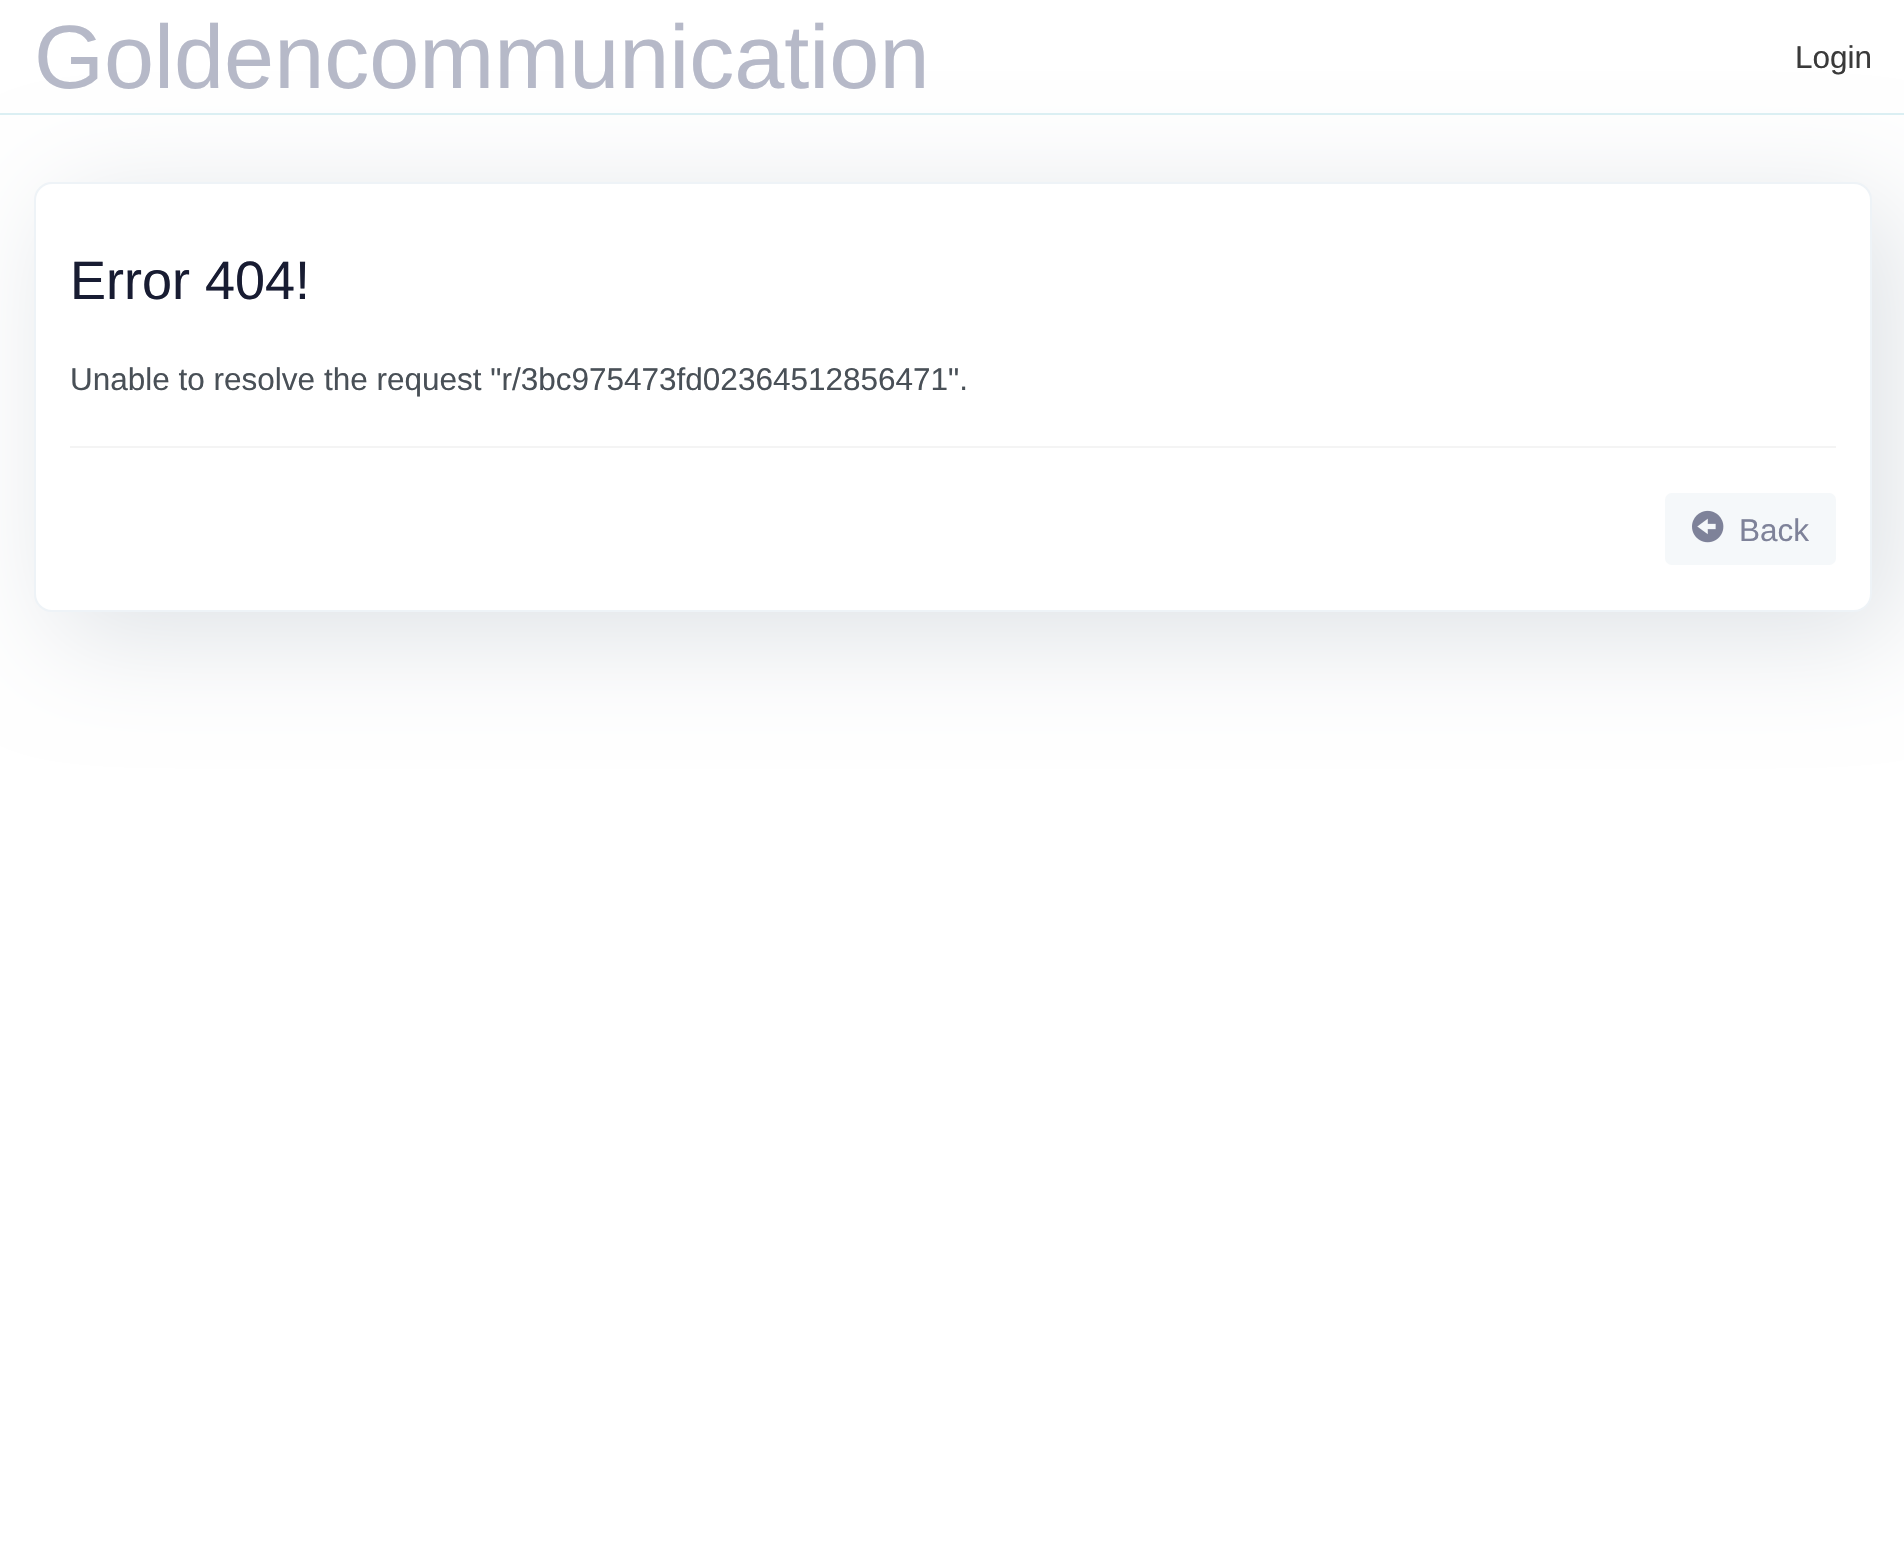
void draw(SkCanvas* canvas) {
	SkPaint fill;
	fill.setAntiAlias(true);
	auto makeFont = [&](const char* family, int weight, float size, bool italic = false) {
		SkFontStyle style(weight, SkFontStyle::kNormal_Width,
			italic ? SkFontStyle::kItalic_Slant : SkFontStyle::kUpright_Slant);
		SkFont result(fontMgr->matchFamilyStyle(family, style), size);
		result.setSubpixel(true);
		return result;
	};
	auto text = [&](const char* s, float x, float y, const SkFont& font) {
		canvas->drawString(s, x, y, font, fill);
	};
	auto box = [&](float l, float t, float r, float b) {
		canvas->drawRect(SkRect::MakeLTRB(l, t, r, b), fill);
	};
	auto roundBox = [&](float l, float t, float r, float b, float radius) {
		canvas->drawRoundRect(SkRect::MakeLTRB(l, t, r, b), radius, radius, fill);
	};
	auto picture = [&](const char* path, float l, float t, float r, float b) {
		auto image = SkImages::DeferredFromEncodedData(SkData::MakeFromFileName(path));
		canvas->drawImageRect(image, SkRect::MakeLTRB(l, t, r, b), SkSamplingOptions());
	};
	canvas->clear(0xFFFFFFFF);
	fill.setColor(0xFFDBF0F4);
	box(0, 113, 1904, 115);
	fill.setColor(0xFFDEE2E6);
	fill.setMaskFilter(SkMaskFilter::MakeBlur(kNormal_SkBlurStyle, 56));
	canvas->drawRoundRect(SkRect::MakeLTRB(56, 205, 1895, 635), 18, 18, fill);
	fill.setMaskFilter(nullptr);
	fill.setColor(0xFFFFFFFF);
	canvas->drawRoundRect(SkRect::MakeLTRB(35, 183, 1871, 611), 17, 17, fill);
	fill.setStyle(SkPaint::kStroke_Style);
	fill.setStrokeWidth(2);
	fill.setColor(0xFFEEF3F7);
	canvas->drawRoundRect(SkRect::MakeLTRB(35, 183, 1871, 611), 17, 17, fill);
	fill.setStyle(SkPaint::kFill_Style);
	fill.setColor(0xFFF4F4F4);
	box(70, 446, 1836, 448);
	fill.setColor(0xFFF5F8FA);
	roundBox(1665, 493, 1836, 565, 7);
	picture("image0.png", 1692, 510, 1724, 543);
	auto font1 = makeFont("Liberation Sans", 400, 90);
	fill.setColor(0xFFB6B9C8);
	text("Goldencommunication", 34, 88, font1);
	auto font2 = makeFont("Liberation Sans", 400, 31.5f);
	fill.setColor(0xFF3A3A3A);
	text("Login", 1795, 68, font2);
	auto font3 = makeFont("Liberation Sans", 400, 54);
	fill.setColor(0xFF181C32);
	text("Error 404!", 70, 299, font3);
	fill.setColor(0xFF495057);
	text("Unable to resolve the request \"r/3bc975473fd02364512856471\".", 70, 390, font2);
	fill.setColor(0xFF7E8299);
	text("Back", 1739, 541, font2);
}
